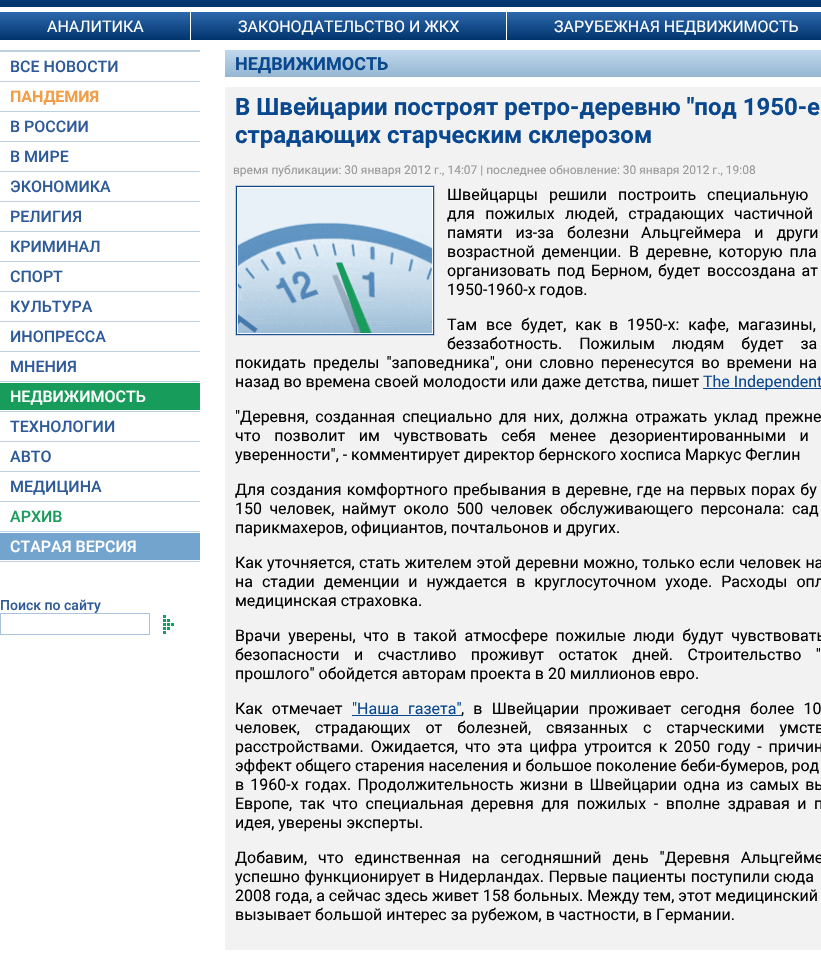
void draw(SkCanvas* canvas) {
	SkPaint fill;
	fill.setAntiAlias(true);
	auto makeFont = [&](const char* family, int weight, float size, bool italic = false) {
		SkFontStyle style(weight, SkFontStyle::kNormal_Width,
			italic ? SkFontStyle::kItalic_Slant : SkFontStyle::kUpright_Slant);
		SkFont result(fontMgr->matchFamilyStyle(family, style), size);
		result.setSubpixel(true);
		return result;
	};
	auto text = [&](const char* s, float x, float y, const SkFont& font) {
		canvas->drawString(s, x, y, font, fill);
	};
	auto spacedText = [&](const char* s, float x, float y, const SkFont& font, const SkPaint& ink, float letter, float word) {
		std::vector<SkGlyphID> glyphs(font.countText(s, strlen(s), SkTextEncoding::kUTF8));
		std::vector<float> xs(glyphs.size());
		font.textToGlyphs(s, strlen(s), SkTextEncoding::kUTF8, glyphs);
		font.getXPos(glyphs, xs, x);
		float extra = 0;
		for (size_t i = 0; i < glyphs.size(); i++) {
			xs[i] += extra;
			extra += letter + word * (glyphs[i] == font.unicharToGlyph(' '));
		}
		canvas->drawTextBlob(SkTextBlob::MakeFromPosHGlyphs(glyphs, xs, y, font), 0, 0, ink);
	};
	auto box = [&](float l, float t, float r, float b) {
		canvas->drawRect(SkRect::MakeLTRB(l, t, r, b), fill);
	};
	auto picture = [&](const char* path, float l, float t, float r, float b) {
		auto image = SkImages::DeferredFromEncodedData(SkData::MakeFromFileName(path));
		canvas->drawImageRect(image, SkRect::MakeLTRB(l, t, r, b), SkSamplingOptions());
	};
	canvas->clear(0xFFFFFFFF);
	{
		const SkColor colors[] = {0xFF2D69AD, 0xFF00346D};
		const float stops[] = {0, 1};
		const SkPoint ends[] = {{625, -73}, {625, 7}};
		fill.setShader(SkGradientShader::MakeLinear(ends, colors, stops, 2, SkTileMode::kClamp));
		fill.setAlpha(255);
	}
	box(0, 0, 821, 7);
	{
		const SkColor colors[] = {0xFF2D69AD, 0xFF00346D};
		const float stops[] = {0, 1};
		const SkPoint ends[] = {{625, 12}, {625, 40}};
		fill.setShader(SkGradientShader::MakeLinear(ends, colors, stops, 2, SkTileMode::kClamp));
		fill.setAlpha(255);
	}
	box(0, 12, 821, 40);
	fill.setShader(nullptr);
	fill.setColor(0xFFFFFFFF);
	box(190, 12, 191, 41);
	box(506, 12, 507, 41);
	fill.setColor(0xFFBFCFE2);
	box(0, 50, 200, 52);
	box(0, 81, 200, 82);
	box(0, 111, 200, 112);
	box(0, 141, 200, 142);
	box(0, 171, 200, 172);
	box(0, 201, 200, 202);
	box(0, 231, 200, 232);
	box(0, 261, 200, 262);
	box(0, 291, 200, 292);
	box(0, 321, 200, 322);
	box(0, 351, 200, 352);
	box(0, 381, 200, 382);
	box(0, 411, 200, 412);
	fill.setColor(0xFF189C5B);
	box(0, 383, 200, 410);
	fill.setColor(0xFFBFCFE2);
	box(0, 441, 200, 442);
	box(0, 471, 200, 472);
	box(0, 501, 200, 502);
	box(0, 531, 200, 532);
	box(0, 561, 200, 562);
	fill.setColor(0xFF73A4CD);
	box(0, 533, 200, 560);
	fill.setStyle(SkPaint::kStroke_Style);
	fill.setStrokeWidth(1);
	fill.setColor(0xFFAAC2DB);
	canvas->drawRect(SkRect::MakeLTRB(0.5f, 613.5f, 149.5f, 634.5f), fill);
	picture("image0.png", 163, 615, 174, 634);
	fill.setStyle(SkPaint::kFill_Style);
	{
		const SkColor colors[] = {0xFFC0D8EC, 0xFF95B6D1};
		const float stops[] = {0, 1};
		const SkPoint ends[] = {{560, 50}, {560, 77}};
		fill.setShader(SkGradientShader::MakeLinear(ends, colors, stops, 2, SkTileMode::kClamp));
		fill.setAlpha(255);
	}
	box(225, 50, 821, 77);
	fill.setShader(nullptr);
	fill.setColor(0xFFF2F2F2);
	box(225, 87, 821, 950);
	fill.setStyle(SkPaint::kStroke_Style);
	fill.setColor(0xFFC7CEDF);
	canvas->drawRect(SkRect::MakeLTRB(235.5f, 185.5f, 434.5f, 335.5f), fill);
	picture("image1.png", 236, 186, 434, 335);
	fill.setStyle(SkPaint::kFill_Style);
	fill.setColor(0xFF09488F);
	box(703, 388, 821, 389);
	box(352, 715, 461, 716);
	auto font1 = makeFont("Roboto", 400, 16);
	fill.setColor(0xFFFFFFFF);
	text("АНАЛИТИКА", 47, 32, font1);
	text("ЗАКОНОДАТЕЛЬСТВО И ЖКХ", 238, 32, font1);
	text("ЗАРУБЕЖНАЯ НЕДВИЖИМОСТЬ", 554, 32, font1);
	auto font2 = makeFont("Roboto", 500, 16);
	fill.setColor(0xFF2E5A98);
	text("ВСЕ НОВОСТИ", 10, 72, font2);
	auto font3 = makeFont("Roboto", 700, 16);
	fill.setColor(0xFFF39D46);
	text("ПАНДЕМИЯ", 10, 102, font3);
	fill.setColor(0xFF2E5A98);
	text("В РОССИИ", 10, 132, font2);
	text("В МИРЕ", 10, 162, font2);
	text("ЭКОНОМИКА", 10, 192, font2);
	text("РЕЛИГИЯ", 10, 222, font2);
	text("КРИМИНАЛ", 10, 252, font2);
	text("СПОРТ", 10, 282, font2);
	text("КУЛЬТУРА", 10, 312, font2);
	text("ИНОПРЕССА", 10, 342, font2);
	text("МНЕНИЯ", 10, 372, font2);
	fill.setColor(0xFFFFFFFF);
	text("НЕДВИЖИМОСТЬ", 10, 402, font2);
	fill.setColor(0xFF2E5A98);
	text("ТЕХНОЛОГИИ", 10, 432, font2);
	text("АВТО", 10, 462, font2);
	text("МЕДИЦИНА", 10, 492, font2);
	fill.setColor(0xFF189C5B);
	text("АРХИВ", 10, 522, font2);
	fill.setColor(0xFFFFFFFF);
	text("СТАРАЯ ВЕРСИЯ", 10, 552, font2);
	auto font4 = makeFont("Roboto", 500, 14);
	fill.setColor(0xFF2E5A98);
	text("Поиск по сайту", 0, 610, font4);
	auto font5 = makeFont("Roboto", 700, 18);
	fill.setColor(0xFF09488F);
	text("НЕДВИЖИМОСТЬ", 235, 70, font5);
	auto font6 = makeFont("Roboto", 700, 24);
	text("В Швейцарии построят ретро-деревню \"под 1950-е", 235, 115, font6);
	text("страдающих старческим склерозом", 235, 143, font6);
	auto font7 = makeFont("Roboto", 400, 12);
	fill.setColor(0xFF999999);
	text("время публикации: 30 января 2012 г., 14:07 | последнее обновление: 30 января 2012 г., 19:08", 233, 174, font7);
	fill.setColor(0xFF000000);
	spacedText("Швейцарцы решили построить специальную", 447, 200, font1, fill, 0, 7);
	spacedText("для пожилых людей, страдающих", 447, 219, font1, fill, 0, 6.5f);
	spacedText("частичной", 734, 219, font1, fill, 0, 6.5f);
	spacedText("памяти из-за болезни", 447, 238, font1, fill, 0, 9);
	spacedText("Альцгеймера и други", 641, 238, font1, fill, 0, 9);
	spacedText("возрастной деменции.", 447, 257, font1, fill, 0, 3);
	spacedText("В деревне, которую пла", 629, 257, font1, fill, 0, 3);
	text("организовать", 447, 276, font1);
	text("под", 557, 276, font1);
	text("Берном,", 591, 276, font1);
	text("будет", 658, 276, font1);
	spacedText("воссоздана ат", 707, 276, font1, fill, 0, 2);
	text("1950-1960-х годов.", 447, 295, font1);
	spacedText("Там все будет, как", 447, 330, font1, fill, 0, 5);
	spacedText("в 1950-х: кафе, магазины,", 609, 330, font1, fill, 0, 5);
	spacedText("беззаботность. Пожилым людям будет за", 447, 349, font1, fill, 0, 13);
	spacedText("покидать пределы \"заповедника\", они словно перенесутся во времени на", 235, 368, font1, fill, 0, 3);
	text("назад во времена своей молодости или даже детства, пишет", 235, 387, font1);
	fill.setColor(0xFF09488F);
	text("The Independent", 703, 387, font1);
	fill.setColor(0xFF000000);
	spacedText("\"Деревня, созданная специально для них, должна отражать уклад прежне", 235, 422, font1, fill, 0, 3);
	spacedText("что позволит им чувствовать себя менее дезориентированными и", 235, 441, font1, fill, 0, 9.75f);
	text("уверенности\", - комментирует директор бернского хосписа Маркус Феглин", 235, 460, font1);
	spacedText("Для создания комфортного пребывания в деревне, где на первых порах бу", 235, 495, font1, fill, 0, 1.25f);
	spacedText("150 человек, наймут около 500 человек обслуживающего персонала: сад", 235, 514, font1, fill, 0, 3.5f);
	text("парикмахеров, официантов, почтальонов и других.", 235, 533, font1);
	spacedText("Как уточняется, стать жителем этой деревни можно, только если человек на", 235, 568, font1, fill, 0, 0.5f);
	spacedText("на стадии деменции и нуждается в круглосуточном уходе. Расходы опл", 235, 587, font1, fill, 0, 5);
	text("медицинская страховка.", 235, 606, font1);
	spacedText("Врачи уверены, что в такой атмосфере пожилые люди будут чувствовать", 235, 641, font1, fill, 0, 3.75f);
	spacedText("безопасности и счастливо проживут остаток дней. Строительство \"", 235, 660, font1, fill, 0, 10.5f);
	text("прошлого\" обойдется авторам проекта в 20 миллионов евро.", 235, 679, font1);
	spacedText("Как отмечает", 235, 714, font1, fill, 0, 5.25f);
	fill.setColor(0xFF09488F);
	spacedText("\"Наша газета\"", 352, 714, font1, fill, 0, 5.25f);
	fill.setColor(0xFF000000);
	spacedText(", в Швейцарии проживает сегодня более 10", 461, 714, font1, fill, 0, 5.25f);
	spacedText("человек, страдающих от болезней, связанных с старческими умств", 235, 733, font1, fill, 0, 11);
	spacedText("расстройствами. Ожидается, что эта цифра утроится к 2050 году - причин", 235, 752, font1, fill, 0, 3);
	text("эффект общего старения населения и большое поколение беби-бумеров, род", 235, 771, font1);
	spacedText("в 1960-х годах. Продолжительность жизни в Швейцарии одна из самых вы", 235, 790, font1, fill, 0, 2.25f);
	spacedText("Европе, так что специальная деревня для пожилых - вполне здравая и п", 235, 809, font1, fill, 0, 3.6f);
	text("идея, уверены эксперты.", 235, 828, font1);
	spacedText("Добавим, что единственная на сегодняшний день \"Деревня Альцгейме", 235, 863, font1, fill, 0, 7);
	spacedText("успешно функционирует в Нидерландах. Первые пациенты поступили сюда", 235, 882, font1, fill, 0, 0.5f);
	text("2008 года, а сейчас здесь живет 158 больных. Между тем, этот медицинский", 235, 901, font1);
	text("вызывает большой интерес за рубежом, в частности, в Германии.", 235, 920, font1);
}
